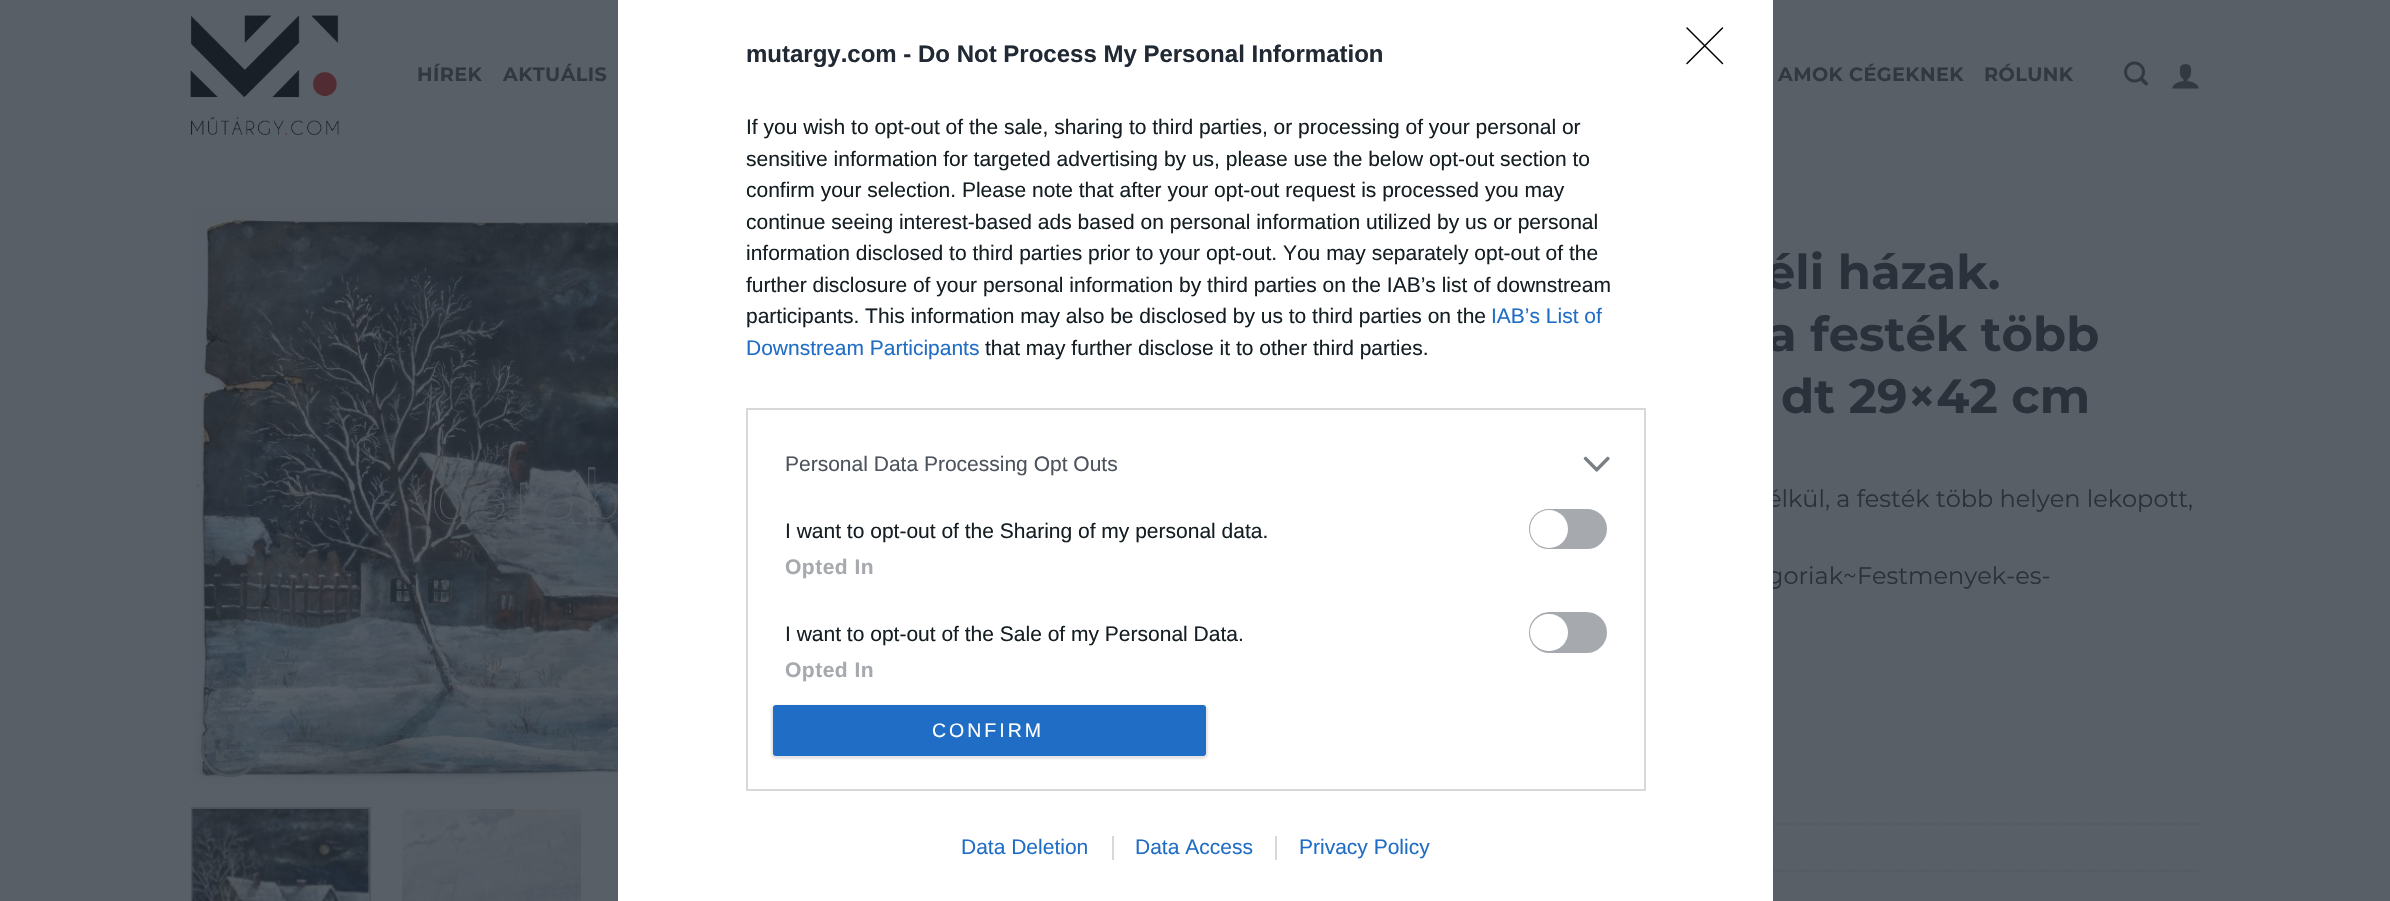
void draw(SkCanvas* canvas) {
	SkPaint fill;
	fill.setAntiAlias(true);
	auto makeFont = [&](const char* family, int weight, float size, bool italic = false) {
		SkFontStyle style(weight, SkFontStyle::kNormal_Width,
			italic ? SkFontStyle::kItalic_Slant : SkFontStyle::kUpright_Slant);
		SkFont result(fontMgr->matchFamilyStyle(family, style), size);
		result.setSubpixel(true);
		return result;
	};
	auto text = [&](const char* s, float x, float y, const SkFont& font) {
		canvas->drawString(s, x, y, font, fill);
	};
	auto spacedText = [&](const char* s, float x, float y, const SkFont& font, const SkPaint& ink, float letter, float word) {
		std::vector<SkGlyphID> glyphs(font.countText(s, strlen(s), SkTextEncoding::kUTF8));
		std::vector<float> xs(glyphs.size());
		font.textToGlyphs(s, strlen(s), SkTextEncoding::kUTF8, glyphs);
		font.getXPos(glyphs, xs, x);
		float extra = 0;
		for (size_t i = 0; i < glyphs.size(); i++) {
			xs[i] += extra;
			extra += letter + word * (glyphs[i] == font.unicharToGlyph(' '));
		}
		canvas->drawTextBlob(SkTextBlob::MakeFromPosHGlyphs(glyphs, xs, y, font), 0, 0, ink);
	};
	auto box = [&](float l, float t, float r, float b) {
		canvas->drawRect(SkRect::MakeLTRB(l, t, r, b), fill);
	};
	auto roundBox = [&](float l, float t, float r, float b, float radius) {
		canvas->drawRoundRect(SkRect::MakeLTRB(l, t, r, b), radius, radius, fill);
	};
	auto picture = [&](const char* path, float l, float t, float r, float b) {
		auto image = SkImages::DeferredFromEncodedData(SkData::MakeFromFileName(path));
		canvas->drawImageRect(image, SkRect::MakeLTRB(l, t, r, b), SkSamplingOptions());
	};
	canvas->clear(0xFF595F67);
	picture("image1.png", 190, 15, 339, 135);
	picture("image2.png", 2124, 61, 2148, 86);
	picture("image3.png", 2172, 64, 2199, 89);
	picture("image4.png", 191, 210, 618, 784);
	fill.setStyle(SkPaint::kStroke_Style);
	fill.setStrokeWidth(3);
	fill.setColor(0xFF494F57);
	canvas->drawRoundRect(SkRect::MakeLTRB(202.5f, 721.5f, 258.5f, 775.5f), 27, 27, fill);
	picture("image5.png", 216, 732, 244, 761);
	fill.setStrokeWidth(2);
	fill.setColor(0xFF4C525A);
	canvas->drawRect(SkRect::MakeLTRB(192, 808, 370, 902), fill);
	picture("image6.png", 191, 809, 370, 901);
	picture("image7.png", 401, 809, 581, 901);
	fill.setStrokeWidth(1.5f);
	fill.setColor(0xFF50565E);
	fill.setPathEffect(SkDashPathEffect::Make({{1.5f, 1.5f}}, 0));
	canvas->drawPath(SkPathBuilder().moveTo(1047, 824).lineTo(2200.5f, 824).detach(), fill);
	fill.setPathEffect(nullptr);
	fill.setPathEffect(SkDashPathEffect::Make({{1.5f, 1.5f}}, 0));
	canvas->drawPath(SkPathBuilder().moveTo(1047, 871).lineTo(2200.5f, 871).detach(), fill);
	fill.setPathEffect(nullptr);
	auto font1 = makeFont("Montserrat", 700, 19.25f);
	fill.setStyle(SkPaint::kFill_Style);
	fill.setColor(0xFF323840);
	spacedText("HÍREK", 417, 81, font1, fill, 0.4f, 0);
	spacedText("AKTUÁLIS", 503, 81, font1, fill, 0.4f, 0);
	spacedText("AMOK CÉGEKNEK", 1778, 81, font1, fill, 0.4f, 0);
	spacedText("RÓLUNK", 1984, 81, font1, fill, 0.4f, 0);
	auto font2 = makeFont("Montserrat", 700, 48);
	fill.setColor(0xFF2B313A);
	text("éli házak.", 1765, 289, font2);
	text("a festék több", 1767, 351, font2);
	text("dt 29×42 cm", 1781, 413, font2);
	auto font3 = makeFont("Montserrat", 400, 24);
	text("élkül, a festék több helyen lekopott,", 1767, 507, font3);
	text("goriak~Festmenyek-es-", 1767, 584, font3);
	fill.setColor(0xFFFFFFFF);
	box(618, 0, 1773, 901);
	fill.setStyle(SkPaint::kStroke_Style);
	fill.setStrokeWidth(2);
	fill.setColor(0xFFD8D8D8);
	canvas->drawRect(SkRect::MakeLTRB(747, 409, 1645, 790), fill);
	fill.setStyle(SkPaint::kFill_Style);
	fill.setColor(0xFFA6A9AE);
	canvas->drawRoundRect(SkRect::MakeLTRB(1530, 613, 1606, 652), 19.5f, 19.5f, fill);
	fill.setStyle(SkPaint::kStroke_Style);
	canvas->drawRoundRect(SkRect::MakeLTRB(1530, 613, 1606, 652), 19.5f, 19.5f, fill);
	fill.setStyle(SkPaint::kFill_Style);
	fill.setColor(0xFFFFFFFF);
	roundBox(1530, 614, 1568, 651, 18.5f);
	fill.setColor(0xFFA6A9AE);
	canvas->drawRoundRect(SkRect::MakeLTRB(1530, 510, 1606, 548), 19, 19, fill);
	fill.setStyle(SkPaint::kStroke_Style);
	canvas->drawRoundRect(SkRect::MakeLTRB(1530, 510, 1606, 548), 19, 19, fill);
	fill.setStyle(SkPaint::kFill_Style);
	fill.setColor(0xFFFFFFFF);
	canvas->drawCircle(1549, 529, 19, fill);
	picture("image0.png", 1583, 456, 1610, 472);
	fill.setStyle(SkPaint::kStroke_Style);
	fill.setStrokeWidth(1.5f);
	fill.setStrokeCap(SkPaint::kRound_Cap);
	fill.setStrokeJoin(SkPaint::kRound_Join);
	fill.setColor(0xFF000000);
	canvas->drawPath(SkPathBuilder().moveTo(1687, 28).lineTo(1722.5f, 63.5f).moveTo(1722.5f, 28).lineTo(1687, 63.5f).detach(), fill);
	fill.setStyle(SkPaint::kFill_Style);
	fill.setColor(0x1A000000);
	fill.setMaskFilter(SkMaskFilter::MakeBlur(kNormal_SkBlurStyle, 1));
	canvas->drawRoundRect(SkRect::MakeLTRB(771, 705, 1208, 759), 5, 5, fill);
	fill.setMaskFilter(nullptr);
	fill.setColor(0xFF206DC5);
	roundBox(773, 705, 1206, 756, 3);
	auto font4 = makeFont("Liberation Sans", 400, 19.5f);
	fill.setColor(0xFFFFFFFF);
	spacedText("CONFIRM", 932, 737, font4, fill, 3, 0);
	auto font5 = makeFont("Liberation Sans", 700, 21);
	fill.setColor(0xFFA6A9AE);
	spacedText("Opted In", 785, 677, font5, fill, 0.5f, 0);
	auto font6 = makeFont("Liberation Sans", 400, 21);
	fill.setColor(0xFF141E23);
	text("I want to opt-out of the Sale of my Personal Data.", 785, 641, font6);
	fill.setColor(0xFFA6A9AE);
	spacedText("Opted In", 785, 574, font5, fill, 0.5f, 0);
	fill.setColor(0xFF141E23);
	text("I want to opt-out of the Sharing of my personal data.", 785, 538, font6);
	fill.setColor(0xFF4D545D);
	text("Personal Data Processing Opt Outs", 785, 471, font6);
	fill.setColor(0xFF141E23);
	text("that may further disclose it to other third parties.", 985, 355, font6);
	fill.setColor(0xFF206DC5);
	text("Downstream Participants", 746, 355, font6);
	text("IAB’s List of", 1491, 323, font6);
	fill.setColor(0xFF141E23);
	text("participants. This information may also be disclosed by us to third parties on the", 746, 323, font6);
	text("further disclosure of your personal information by third parties on the IAB’s list of downstream", 746, 292, font6);
	text("information disclosed to third parties prior to your opt-out. You may separately opt-out of the", 746, 260, font6);
	text("continue seeing interest-based ads based on personal information utilized by us or personal", 746, 229, font6);
	text("confirm your selection. Please note that after your opt-out request is processed you may", 746, 197, font6);
	text("sensitive information for targeted advertising by us, please use the below opt-out section to", 746, 166, font6);
	text("If you wish to opt-out of the sale, sharing to third parties, or processing of your personal or", 746, 134, font6);
	fill.setColor(0xFF206DC5);
	text("Privacy Policy", 1299, 854, font6);
	fill.setColor(0xFFD8D8D8);
	box(1275, 836, 1277, 860);
	fill.setColor(0xFF206DC5);
	text("Data Access", 1135, 854, font6);
	fill.setColor(0xFFD8D8D8);
	box(1112, 836, 1114, 860);
	fill.setColor(0xFF206DC5);
	text("Data Deletion", 961, 854, font6);
	auto font7 = makeFont("Liberation Sans", 700, 24);
	fill.setColor(0xFF212934);
	text("mutargy.com - Do Not Process My Personal Information", 746, 62, font7);
}
